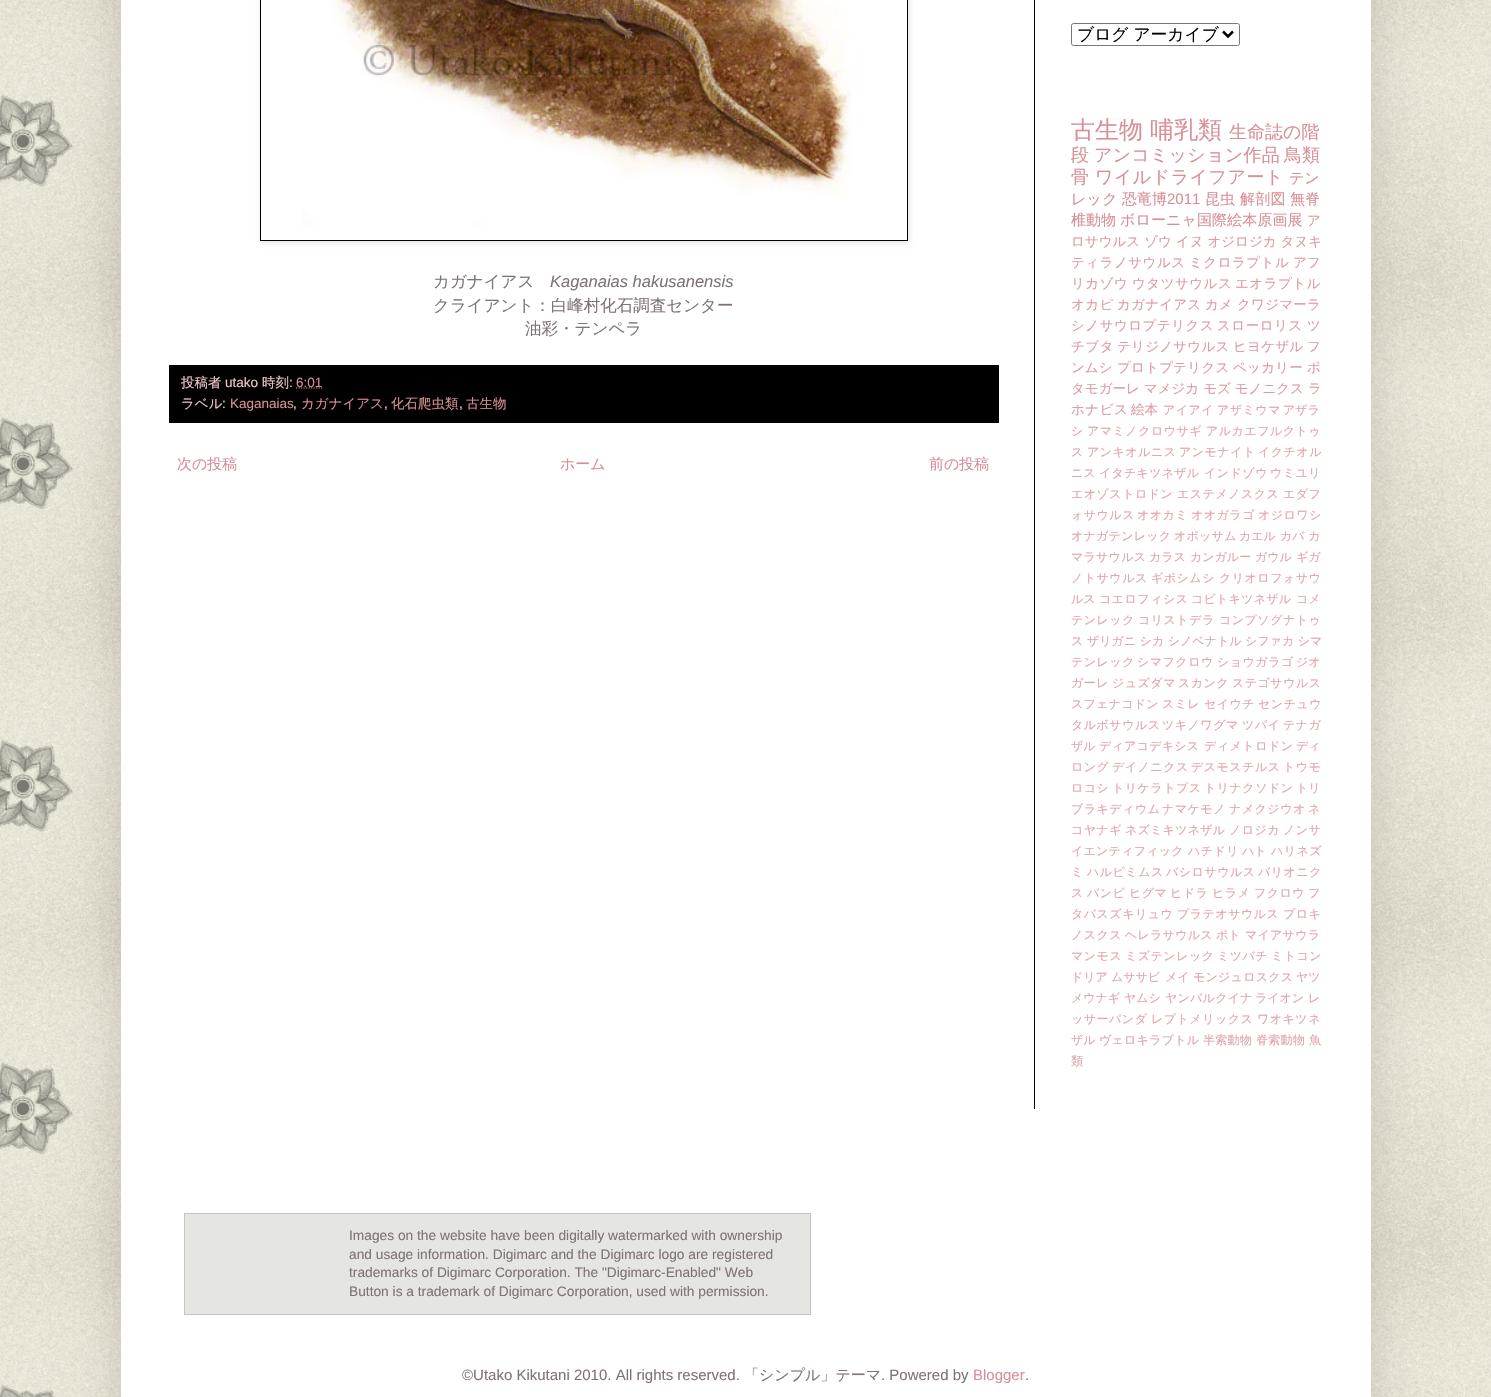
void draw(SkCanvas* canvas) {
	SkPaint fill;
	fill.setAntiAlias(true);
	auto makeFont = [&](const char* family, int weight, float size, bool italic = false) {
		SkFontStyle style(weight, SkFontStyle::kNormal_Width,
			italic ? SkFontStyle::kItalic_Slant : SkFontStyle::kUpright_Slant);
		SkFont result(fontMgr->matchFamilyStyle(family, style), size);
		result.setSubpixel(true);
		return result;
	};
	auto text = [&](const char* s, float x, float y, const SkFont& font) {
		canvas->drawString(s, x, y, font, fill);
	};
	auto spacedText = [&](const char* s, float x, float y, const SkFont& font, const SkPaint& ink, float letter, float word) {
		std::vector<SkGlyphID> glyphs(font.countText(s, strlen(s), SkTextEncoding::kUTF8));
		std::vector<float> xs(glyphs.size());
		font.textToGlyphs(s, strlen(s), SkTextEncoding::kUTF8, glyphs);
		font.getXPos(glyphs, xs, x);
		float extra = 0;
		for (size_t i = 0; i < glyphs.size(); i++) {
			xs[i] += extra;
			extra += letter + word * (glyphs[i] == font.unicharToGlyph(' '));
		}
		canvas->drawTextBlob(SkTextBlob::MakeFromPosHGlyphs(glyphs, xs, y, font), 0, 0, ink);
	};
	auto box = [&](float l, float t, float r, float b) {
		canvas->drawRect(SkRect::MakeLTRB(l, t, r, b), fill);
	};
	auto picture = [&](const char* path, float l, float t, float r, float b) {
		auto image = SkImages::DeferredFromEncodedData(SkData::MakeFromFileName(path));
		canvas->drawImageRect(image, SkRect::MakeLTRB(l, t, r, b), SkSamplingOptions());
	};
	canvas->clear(0xFFFFFFFF);
	picture("image0.png", 0, 0, 1491, 1397);
	fill.setColor(0x26000000);
	fill.setMaskFilter(SkMaskFilter::MakeBlur(kNormal_SkBlurStyle, 25));
	canvas->drawRect(SkRect::MakeLTRB(121, -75, 1371, 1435), fill);
	fill.setMaskFilter(nullptr);
	fill.setColor(0xFFFFFFFF);
	box(121, 0, 1371, 1397);
	fill.setColor(0xFF000000);
	box(1034, 0, 1035, 1109);
	fill.setColor(0x1A000000);
	fill.setMaskFilter(SkMaskFilter::MakeBlur(kNormal_SkBlurStyle, 3));
	canvas->drawRect(SkRect::MakeLTRB(261, -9, 909, 243), fill);
	fill.setMaskFilter(nullptr);
	fill.setColor(0xFFFFFFFF);
	canvas->drawRect(SkRect::MakeLTRB(260.5f, -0.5f, 907.5f, 240.5f), fill);
	fill.setStyle(SkPaint::kStroke_Style);
	fill.setStrokeWidth(1);
	fill.setColor(0xFF000000);
	canvas->drawRect(SkRect::MakeLTRB(260.5f, -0.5f, 907.5f, 240.5f), fill);
	picture("image1.png", 302, 0, 852, 228);
	fill.setStyle(SkPaint::kFill_Style);
	box(169, 365, 999, 423);
	fill.setStyle(SkPaint::kStroke_Style);
	fill.setStrokeWidth(1.2f);
	fill.setColor(0xFFD98F96);
	fill.setPathEffect(SkDashPathEffect::Make({{1.25f, 1.25f}}, 0));
	canvas->drawPath(SkPathBuilder().moveTo(296, 388).lineTo(322.5f, 388).detach(), fill);
	fill.setPathEffect(nullptr);
	fill.setStrokeWidth(1);
	fill.setColor(0xFF767676);
	canvas->drawRoundRect(SkRect::MakeLTRB(1071.5f, 23.5f, 1239.5f, 45.5f), 2, 2, fill);
	fill.setStrokeWidth(2.5f);
	fill.setColor(0xFF000000);
	canvas->drawPath(SkPathBuilder().moveTo(1223, 31.5f).lineTo(1228, 36.5f).lineTo(1233, 31.5f).detach(), fill);
	fill.setStyle(SkPaint::kFill_Style);
	fill.setColor(0xFFE5E5E1);
	canvas->drawRect(SkRect::MakeLTRB(184.5f, 1213.5f, 810.5f, 1314.5f), fill);
	fill.setStyle(SkPaint::kStroke_Style);
	fill.setStrokeWidth(1);
	fill.setColor(0xFFC5C5C1);
	canvas->drawRect(SkRect::MakeLTRB(184.5f, 1213.5f, 810.5f, 1314.5f), fill);
	auto font1 = makeFont("WenQuanYi Zen Hei", 500, 16.5f);
	fill.setStyle(SkPaint::kFill_Style);
	fill.setColor(0xFF7F7375);
	text("カガナイアス", 433, 287, font1);
	auto font2 = makeFont("Liberation Sans", 400, 16.5f, true);
	text("Kaganaias hakusanensis", 550, 287, font2);
	text("クライアント：白峰村化石調査センター", 433, 311, font1);
	text("油彩・テンペラ", 525, 334, font1);
	auto font3 = makeFont("WenQuanYi Zen Hei", 500, 13.5f);
	fill.setColor(0xFFEBC5C8);
	text("投稿者", 181, 387, font3);
	auto font4 = makeFont("Liberation Sans", 400, 13.5f);
	text("utako", 225, 387, font4);
	text("時刻", 262, 387, font3);
	text(":", 289, 387, font4);
	fill.setColor(0xFFD98F96);
	text("6:01", 296, 387, font4);
	fill.setColor(0xFFEBC5C8);
	text("ラベル", 181, 408, font3);
	text(":", 222, 408, font4);
	fill.setColor(0xFFD98F96);
	text("Kaganaias", 230, 408, font4);
	fill.setColor(0xFFEBC5C8);
	text(",", 293, 408, font4);
	fill.setColor(0xFFD98F96);
	text("カガナイアス", 301, 408, font3);
	fill.setColor(0xFFEBC5C8);
	text(",", 384, 408, font4);
	fill.setColor(0xFFD98F96);
	text("化石爬虫類", 391, 408, font3);
	fill.setColor(0xFFEBC5C8);
	text(",", 459, 408, font4);
	fill.setColor(0xFFD98F96);
	text("古生物", 466, 408, font3);
	auto font5 = makeFont("WenQuanYi Zen Hei", 500, 15);
	text("次の投稿", 177, 469, font5);
	text("ホーム", 560, 469, font5);
	text("前の投稿", 929, 469, font5);
	auto font6 = makeFont("WenQuanYi Zen Hei", 500, 16.75f);
	fill.setColor(0xFF000000);
	text("ブログ アーカイブ", 1077, 40, font6);
	auto font7 = makeFont("WenQuanYi Zen Hei", 500, 24);
	fill.setColor(0xFFD98F96);
	text("古生物", 1071, 138, font7);
	text("哺乳類", 1150, 138, font7);
	auto font8 = makeFont("WenQuanYi Zen Hei", 500, 18);
	text("生命誌の階", 1229, 138, font8);
	text("段", 1071, 161, font8);
	spacedText("アンコミッション作品", 1094, 161, font8, fill, 0.25f, 0);
	text("鳥類", 1284, 161, font8);
	text("骨", 1071, 183, font8);
	spacedText("ワイルドライフアート", 1095, 183, font8, fill, 0.5f, 0);
	text("テン", 1289, 183, font5);
	spacedText("レック", 1071, 204, font5, fill, 0.25f, 0);
	text("恐竜博", 1122, 204, font5);
	auto font9 = makeFont("Liberation Sans", 400, 15);
	text("2011", 1167, 204, font9);
	text("昆虫", 1205, 204, font5);
	spacedText("解剖図", 1240, 204, font5, fill, 0.25f, 0);
	text("無脊", 1290, 204, font5);
	text("椎動物", 1071, 225, font5);
	spacedText("ボローニャ国際絵本原画展", 1120, 225, font5, fill, 0.1f, 0);
	fill.setColor(0xFFDD9AA1);
	text("ア", 1307, 225, font3);
	text("ロサウルス ゾウ イヌ オジロジカ タヌキ", 1071, 246, font3);
	spacedText("ティラノサウルス", 1071, 267, font3, fill, 0.5f, 0);
	spacedText("ミクロラプトル", 1189, 267, font3, fill, 0.5f, 0);
	text("アフ", 1293, 267, font3);
	spacedText("リカゾウ", 1071, 288, font3, fill, 0.5f, 0);
	spacedText("ウタツサウルス", 1132, 288, font3, fill, 0.5f, 0);
	spacedText("エオラプトル", 1235, 288, font3, fill, 0.5f, 0);
	spacedText("オカピ", 1071, 309, font3, fill, 0.5f, 0);
	spacedText("カガナイアス", 1117, 309, font3, fill, 0.25f, 0);
	text("カメ", 1205, 309, font3);
	spacedText("クワジマーラ", 1237, 309, font3, fill, 0.25f, 0);
	spacedText("シノサウロプテリクス", 1071, 330, font3, fill, 0.5f, 0);
	spacedText("スローロリス", 1217, 330, font3, fill, 0.5f, 0);
	text("ツ", 1307, 330, font3);
	spacedText("チブタ", 1071, 351, font3, fill, 0.5f, 0);
	spacedText("テリジノサウルス", 1117, 351, font3, fill, 0.25f, 0);
	spacedText("ヒヨケザル", 1233, 351, font3, fill, 0.25f, 0);
	text("フ", 1307, 351, font3);
	text("ンムシ", 1071, 372, font3);
	spacedText("プロトプテリクス", 1117, 372, font3, fill, 0.25f, 0);
	spacedText("ペッカリー", 1233, 372, font3, fill, 0.25f, 0);
	text("ポ", 1307, 372, font3);
	text("タモガーレ マメジカ モズ モノニクス ラ", 1071, 393, font3);
	spacedText("ホナビス", 1071, 414, font3, fill, 0.5f, 0);
	text("絵本", 1131, 414, font3);
	auto font10 = makeFont("WenQuanYi Zen Hei", 500, 12);
	fill.setColor(0xFFE1A5AB);
	spacedText("アイアイ", 1163, 414, font10, fill, 0.5f, 0);
	spacedText("アザミウマ", 1217, 414, font10, fill, 0.5f, 0);
	text("アザラ", 1283, 414, font10);
	text("シ", 1071, 435, font10);
	spacedText("アマミノクロウサギ", 1087, 435, font10, fill, 0.5f, 0);
	spacedText("アルカエフルクトゥ", 1206, 435, font10, fill, 0.5f, 0);
	text("ス", 1071, 456, font10);
	spacedText("アンキオルニス", 1087, 456, font10, fill, 0.5f, 0);
	spacedText("アンモナイト", 1179, 456, font10, fill, 0.5f, 0);
	spacedText("イクチオル", 1258, 456, font10, fill, 0.5f, 0);
	text("ニス", 1071, 477, font10);
	spacedText("イタチキツネザル", 1099, 477, font10, fill, 0.25f, 0);
	spacedText("インドゾウ", 1204, 477, font10, fill, 0.5f, 0);
	spacedText("ウミユリ", 1270, 477, font10, fill, 0.5f, 0);
	spacedText("エオゾストロドン", 1071, 498, font10, fill, 0.5f, 0);
	spacedText("エステメノスクス", 1177, 498, font10, fill, 0.5f, 0);
	spacedText("エダフ", 1283, 498, font10, fill, 0.5f, 0);
	spacedText("ォサウルス", 1071, 519, font10, fill, 0.5f, 0);
	spacedText("オオカミ", 1137, 519, font10, fill, 0.5f, 0);
	spacedText("オオガラゴ", 1191, 519, font10, fill, 0.5f, 0);
	spacedText("オジロワシ", 1258, 519, font10, fill, 0.5f, 0);
	spacedText("オナガテンレック", 1071, 540, font10, fill, 0.25f, 0);
	spacedText("オポッサム", 1174, 540, font10, fill, 0.25f, 0);
	text("カエル", 1239, 540, font10);
	text("カバ カ", 1280, 540, font10);
	spacedText("マラサウルス", 1071, 561, font10, fill, 0.25f, 0);
	text("カラス", 1149, 561, font10);
	text("カンガルー", 1190, 561, font10);
	text("ガウル", 1255, 561, font10);
	text("ギガ", 1296, 561, font10);
	spacedText("ノトサウルス", 1071, 582, font10, fill, 0.5f, 0);
	spacedText("ギボシムシ", 1151, 582, font10, fill, 0.5f, 0);
	spacedText("クリオロフォサウ", 1219, 582, font10, fill, 0.5f, 0);
	text("ルス", 1071, 603, font10);
	spacedText("コエロフィシス", 1099, 603, font10, fill, 0.5f, 0);
	spacedText("コビトキツネザル", 1191, 603, font10, fill, 0.25f, 0);
	text("コメ", 1296, 603, font10);
	spacedText("テンレック", 1071, 624, font10, fill, 0.5f, 0);
	spacedText("コリストデラ", 1138, 624, font10, fill, 0.5f, 0);
	spacedText("コンプソグナトゥ", 1219, 624, font10, fill, 0.5f, 0);
	text("ス ザリガニ シカ シノベナトル シファカ シマ", 1071, 645, font10);
	spacedText("テンレック", 1071, 666, font10, fill, 0.5f, 0);
	spacedText("シマフクロウ", 1137, 666, font10, fill, 0.5f, 0);
	spacedText("ショウガラゴ", 1217, 666, font10, fill, 0.5f, 0);
	text("ジオ", 1296, 666, font10);
	spacedText("ガーレ", 1071, 687, font10, fill, 0.5f, 0);
	spacedText("ジュズダマ", 1112, 687, font10, fill, 0.5f, 0);
	spacedText("スカンク", 1178, 687, font10, fill, 0.5f, 0);
	spacedText("ステゴサウルス", 1232, 687, font10, fill, 0.5f, 0);
	spacedText("スフェナコドン", 1071, 708, font10, fill, 0.25f, 0);
	spacedText("スミレ", 1162, 708, font10, fill, 0.5f, 0);
	spacedText("セイウチ", 1204, 708, font10, fill, 0.5f, 0);
	spacedText("センチュウ", 1258, 708, font10, fill, 0.5f, 0);
	spacedText("タルボサウルス", 1071, 729, font10, fill, 0.5f, 0);
	spacedText("ツキノワグマ", 1162, 729, font10, fill, 0.5f, 0);
	spacedText("ツパイ", 1242, 729, font10, fill, 0.5f, 0);
	spacedText("テナガ", 1283, 729, font10, fill, 0.5f, 0);
	text("ザル", 1071, 750, font10);
	spacedText("ディアコデキシス", 1099, 750, font10, fill, 0.25f, 0);
	spacedText("ディメトロドン", 1204, 750, font10, fill, 0.5f, 0);
	text("ディ", 1296, 750, font10);
	spacedText("ロング", 1071, 771, font10, fill, 0.5f, 0);
	spacedText("デイノニクス", 1112, 771, font10, fill, 0.5f, 0);
	spacedText("デスモスチルス", 1191, 771, font10, fill, 0.5f, 0);
	spacedText("トウモ", 1283, 771, font10, fill, 0.5f, 0);
	spacedText("ロコシ", 1071, 792, font10, fill, 0.5f, 0);
	spacedText("トリケラトプス", 1112, 792, font10, fill, 0.5f, 0);
	spacedText("トリナクソドン", 1204, 792, font10, fill, 0.5f, 0);
	text("トリ", 1296, 792, font10);
	spacedText("ブラキディウム", 1071, 813, font10, fill, 0.5f, 0);
	spacedText("ナマケモノ", 1162, 813, font10, fill, 0.5f, 0);
	spacedText("ナメクジウオ", 1229, 813, font10, fill, 0.5f, 0);
	text("ネ", 1308, 813, font10);
	spacedText("コヤナギ", 1071, 834, font10, fill, 0.5f, 0);
	spacedText("ネズミキツネザル", 1125, 834, font10, fill, 0.25f, 0);
	spacedText("ノロジカ", 1229, 834, font10, fill, 0.5f, 0);
	spacedText("ノンサ", 1283, 834, font10, fill, 0.5f, 0);
	spacedText("イエンティフィック", 1071, 855, font10, fill, 0.25f, 0);
	spacedText("ハチドリ", 1188, 855, font10, fill, 0.5f, 0);
	text("ハト", 1242, 855, font10);
	spacedText("ハリネズ", 1271, 855, font10, fill, 0.5f, 0);
	text("ミ", 1071, 876, font10);
	spacedText("ハルピミムス", 1087, 876, font10, fill, 0.5f, 0);
	spacedText("バシロサウルス", 1166, 876, font10, fill, 0.5f, 0);
	spacedText("バリオニク", 1258, 876, font10, fill, 0.5f, 0);
	text("ス", 1071, 897, font10);
	spacedText("バンビ", 1087, 897, font10, fill, 0.5f, 0);
	spacedText("ヒグマ", 1129, 897, font10, fill, 0.5f, 0);
	spacedText("ヒドラ", 1170, 897, font10, fill, 0.5f, 0);
	spacedText("ヒラメ", 1212, 897, font10, fill, 0.5f, 0);
	spacedText("フクロウ", 1254, 897, font10, fill, 0.5f, 0);
	text("フ", 1308, 897, font10);
	spacedText("タバスズキリュウ", 1071, 918, font10, fill, 0.5f, 0);
	spacedText("プラテオサウルス", 1177, 918, font10, fill, 0.5f, 0);
	spacedText("プロキ", 1283, 918, font10, fill, 0.5f, 0);
	spacedText("ノスクス", 1071, 939, font10, fill, 0.5f, 0);
	spacedText("ヘレラサウルス", 1125, 939, font10, fill, 0.25f, 0);
	text("ポト", 1216, 939, font10);
	spacedText("マイアサウラ", 1245, 939, font10, fill, 0.25f, 0);
	spacedText("マンモス", 1071, 960, font10, fill, 0.5f, 0);
	spacedText("ミズテンレック", 1125, 960, font10, fill, 0.5f, 0);
	spacedText("ミツバチ", 1217, 960, font10, fill, 0.5f, 0);
	spacedText("ミトコン", 1271, 960, font10, fill, 0.5f, 0);
	text("ドリア", 1071, 981, font10);
	text("ムササビ", 1111, 981, font10);
	text("メイ", 1165, 981, font10);
	spacedText("モンジュロスクス", 1193, 981, font10, fill, 0.25f, 0);
	text("ヤツ", 1296, 981, font10);
	text("メウナギ", 1071, 1002, font10);
	text("ヤムシ", 1124, 1002, font10);
	spacedText("ヤンバルクイナ", 1165, 1002, font10, fill, 0.25f, 0);
	text("ライオン", 1255, 1002, font10);
	text("レ", 1308, 1002, font10);
	spacedText("ッサーパンダ", 1071, 1023, font10, fill, 0.5f, 0);
	spacedText("レプトメリックス", 1151, 1023, font10, fill, 0.5f, 0);
	spacedText("ワオキツネ", 1257, 1023, font10, fill, 0.5f, 0);
	text("ザル", 1071, 1044, font10);
	spacedText("ヴェロキラプトル", 1099, 1044, font10, fill, 0.25f, 0);
	spacedText("半索動物", 1203, 1044, font10, fill, 0.25f, 0);
	spacedText("脊索動物", 1256, 1044, font10, fill, 0.25f, 0);
	text("魚", 1309, 1044, font10);
	text("類", 1071, 1065, font10);
	auto font11 = makeFont("Liberation Sans", 400, 13.75f);
	fill.setColor(0xFF7F7375);
	text("Images on the website have been digitally watermarked with ownership", 349, 1240, font11);
	text("and usage information. Digimarc and the Digimarc logo are registered", 349, 1259, font11);
	text("trademarks of Digimarc Corporation. The \"Digimarc-Enabled\" Web", 349, 1277, font11);
	text("Button is a trademark of Digimarc Corporation, used with permission.", 349, 1296, font11);
	text("©Utako Kikutani 2010. All rights reserved.", 462, 1380, font9);
	text("「シンプル」テーマ", 744, 1380, font5);
	text(". Powered by", 881, 1380, font9);
	fill.setColor(0xFFD98F96);
	text("Blogger", 973, 1380, font9);
	fill.setColor(0xFF7F7375);
	text(".", 1025, 1380, font9);
}
